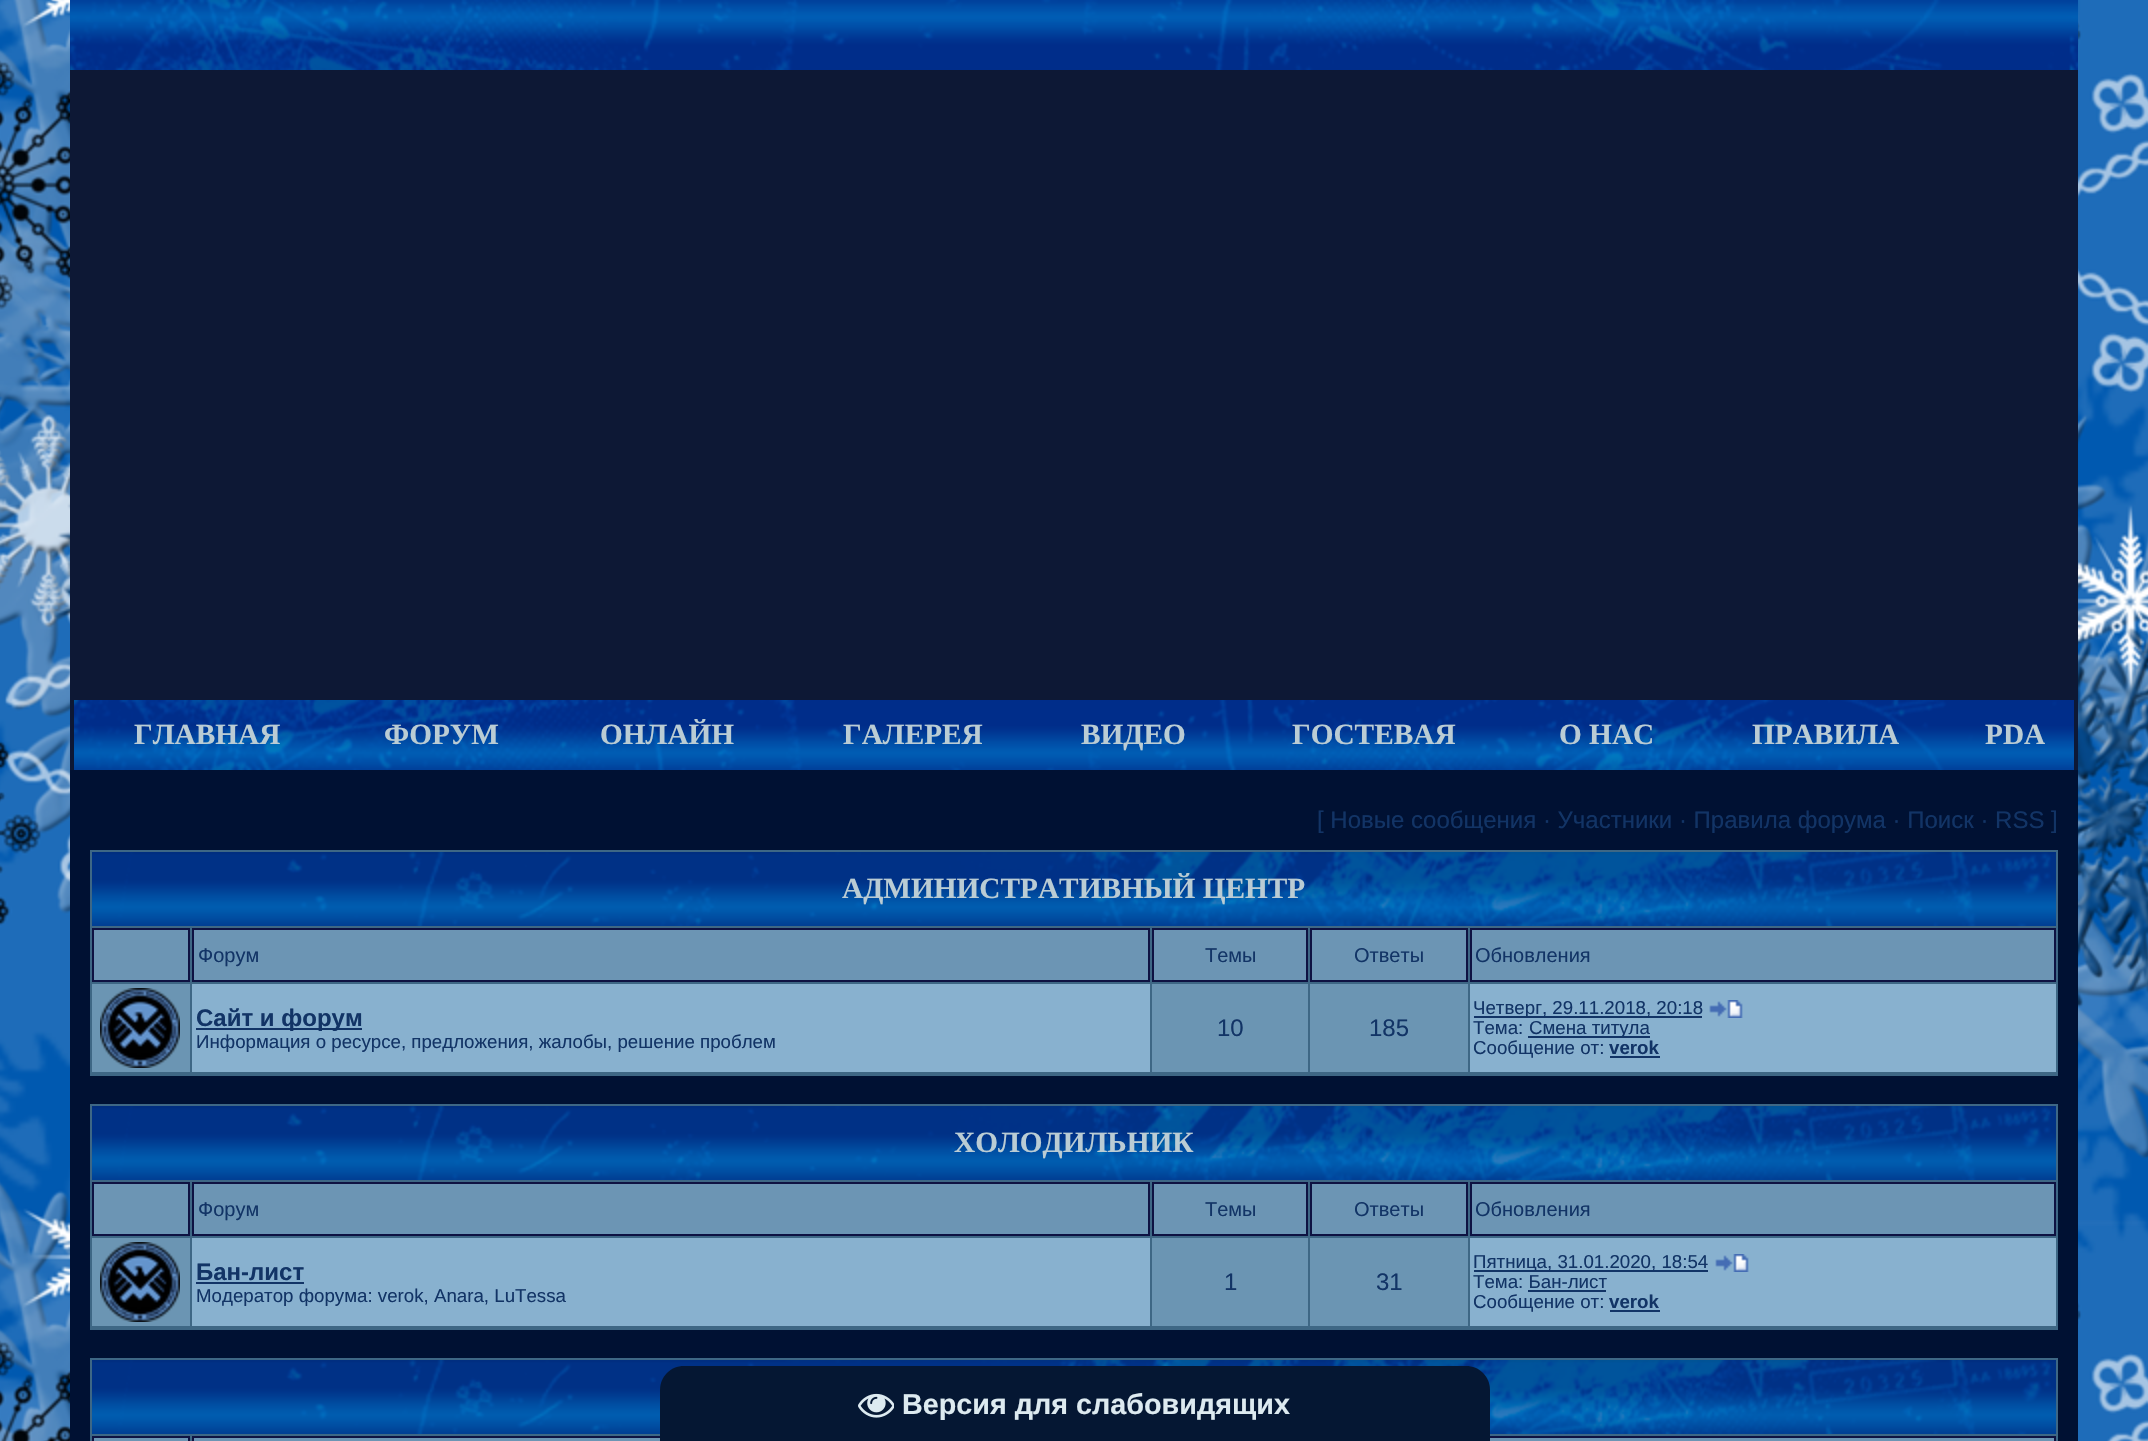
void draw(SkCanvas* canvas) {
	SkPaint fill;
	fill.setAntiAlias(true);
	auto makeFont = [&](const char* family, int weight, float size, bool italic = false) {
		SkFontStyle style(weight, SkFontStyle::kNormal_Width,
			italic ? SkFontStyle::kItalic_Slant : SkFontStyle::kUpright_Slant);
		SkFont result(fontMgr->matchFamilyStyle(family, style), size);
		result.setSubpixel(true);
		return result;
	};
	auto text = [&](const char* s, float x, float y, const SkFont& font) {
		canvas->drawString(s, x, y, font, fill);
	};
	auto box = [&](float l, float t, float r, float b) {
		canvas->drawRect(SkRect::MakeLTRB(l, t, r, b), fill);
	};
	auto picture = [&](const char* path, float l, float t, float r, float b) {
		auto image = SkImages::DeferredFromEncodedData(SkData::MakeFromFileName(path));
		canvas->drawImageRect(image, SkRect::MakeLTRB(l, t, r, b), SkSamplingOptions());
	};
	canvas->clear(0xFFFFFFFF);
	picture("image0.png", 0, 1220, 2148, 1226);
	picture("image1.png", 0, 0, 2148, 1441);
	picture("image2.png", 70, 0, 2078, 70);
	fill.setColor(0xFF0D1835);
	box(70, 70, 2078, 770);
	picture("image3.png", 74, 700, 2074, 770);
	fill.setColor(0xFF001133);
	box(70, 770, 2078, 1441);
	fill.setColor(0xFF3E6785);
	box(90, 850, 2058, 1076);
	picture("image4.png", 92, 852, 2056, 926);
	fill.setColor(0xFF6C95B4);
	canvas->drawRect(SkRect::MakeLTRB(93, 929, 189, 981), fill);
	fill.setStyle(SkPaint::kStroke_Style);
	fill.setStrokeWidth(2);
	fill.setColor(0xFF0E1242);
	canvas->drawRect(SkRect::MakeLTRB(93, 929, 189, 981), fill);
	fill.setStyle(SkPaint::kFill_Style);
	fill.setColor(0xFF6C95B4);
	canvas->drawRect(SkRect::MakeLTRB(193, 929, 1149, 981), fill);
	fill.setStyle(SkPaint::kStroke_Style);
	fill.setColor(0xFF0E1242);
	canvas->drawRect(SkRect::MakeLTRB(193, 929, 1149, 981), fill);
	fill.setStyle(SkPaint::kFill_Style);
	fill.setColor(0xFF6C95B4);
	canvas->drawRect(SkRect::MakeLTRB(1153, 929, 1307, 981), fill);
	fill.setStyle(SkPaint::kStroke_Style);
	fill.setColor(0xFF0E1242);
	canvas->drawRect(SkRect::MakeLTRB(1153, 929, 1307, 981), fill);
	fill.setStyle(SkPaint::kFill_Style);
	fill.setColor(0xFF6C95B4);
	canvas->drawRect(SkRect::MakeLTRB(1311, 929, 1467, 981), fill);
	fill.setStyle(SkPaint::kStroke_Style);
	fill.setColor(0xFF0E1242);
	canvas->drawRect(SkRect::MakeLTRB(1311, 929, 1467, 981), fill);
	fill.setStyle(SkPaint::kFill_Style);
	fill.setColor(0xFF6C95B4);
	canvas->drawRect(SkRect::MakeLTRB(1471, 929, 2055, 981), fill);
	fill.setStyle(SkPaint::kStroke_Style);
	fill.setColor(0xFF0E1242);
	canvas->drawRect(SkRect::MakeLTRB(1471, 929, 2055, 981), fill);
	fill.setStyle(SkPaint::kFill_Style);
	fill.setColor(0xFF6B95B3);
	box(92, 984, 190, 1072);
	picture("image5.png", 100, 988, 180, 1068);
	fill.setColor(0xFF88B1CF);
	box(192, 984, 1150, 1072);
	fill.setColor(0xFF123466);
	box(196, 1028, 362, 1030);
	fill.setColor(0xFF6B95B3);
	box(1152, 984, 1308, 1072);
	box(1310, 984, 1468, 1072);
	fill.setColor(0xFF88B1CF);
	box(1470, 984, 2056, 1072);
	fill.setColor(0xFF123466);
	box(1474, 1016, 1702, 1018);
	picture("image6.png", 1709, 1000, 1743, 1018);
	box(1528, 1036, 1650, 1038);
	box(1610, 1056, 1660, 1058);
	fill.setColor(0xFF3E6785);
	box(90, 1104, 2058, 1330);
	picture("image4.png", 92, 1106, 2056, 1180);
	fill.setColor(0xFF6C95B4);
	canvas->drawRect(SkRect::MakeLTRB(93, 1183, 189, 1235), fill);
	fill.setStyle(SkPaint::kStroke_Style);
	fill.setColor(0xFF0E1242);
	canvas->drawRect(SkRect::MakeLTRB(93, 1183, 189, 1235), fill);
	fill.setStyle(SkPaint::kFill_Style);
	fill.setColor(0xFF6C95B4);
	canvas->drawRect(SkRect::MakeLTRB(193, 1183, 1149, 1235), fill);
	fill.setStyle(SkPaint::kStroke_Style);
	fill.setColor(0xFF0E1242);
	canvas->drawRect(SkRect::MakeLTRB(193, 1183, 1149, 1235), fill);
	fill.setStyle(SkPaint::kFill_Style);
	fill.setColor(0xFF6C95B4);
	canvas->drawRect(SkRect::MakeLTRB(1153, 1183, 1307, 1235), fill);
	fill.setStyle(SkPaint::kStroke_Style);
	fill.setColor(0xFF0E1242);
	canvas->drawRect(SkRect::MakeLTRB(1153, 1183, 1307, 1235), fill);
	fill.setStyle(SkPaint::kFill_Style);
	fill.setColor(0xFF6C95B4);
	canvas->drawRect(SkRect::MakeLTRB(1311, 1183, 1467, 1235), fill);
	fill.setStyle(SkPaint::kStroke_Style);
	fill.setColor(0xFF0E1242);
	canvas->drawRect(SkRect::MakeLTRB(1311, 1183, 1467, 1235), fill);
	fill.setStyle(SkPaint::kFill_Style);
	fill.setColor(0xFF6C95B4);
	canvas->drawRect(SkRect::MakeLTRB(1471, 1183, 2055, 1235), fill);
	fill.setStyle(SkPaint::kStroke_Style);
	fill.setColor(0xFF0E1242);
	canvas->drawRect(SkRect::MakeLTRB(1471, 1183, 2055, 1235), fill);
	fill.setStyle(SkPaint::kFill_Style);
	fill.setColor(0xFF6B95B3);
	box(92, 1238, 190, 1326);
	picture("image5.png", 100, 1242, 180, 1322);
	fill.setColor(0xFF88B1CF);
	box(192, 1238, 1150, 1326);
	fill.setColor(0xFF123466);
	box(196, 1282, 304, 1284);
	fill.setColor(0xFF6B95B3);
	box(1152, 1238, 1308, 1326);
	box(1310, 1238, 1468, 1326);
	fill.setColor(0xFF88B1CF);
	box(1470, 1238, 2056, 1326);
	fill.setColor(0xFF123466);
	box(1474, 1270, 1708, 1272);
	picture("image6.png", 1715, 1254, 1749, 1272);
	box(1528, 1290, 1606, 1292);
	box(1610, 1310, 1660, 1312);
	fill.setColor(0xFF3E6785);
	box(90, 1358, 2058, 1441);
	picture("image4.png", 92, 1360, 2056, 1434);
	fill.setColor(0xFF6C95B4);
	canvas->drawRect(SkRect::MakeLTRB(93, 1437, 189, 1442), fill);
	fill.setStyle(SkPaint::kStroke_Style);
	fill.setColor(0xFF0E1242);
	canvas->drawRect(SkRect::MakeLTRB(93, 1437, 189, 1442), fill);
	fill.setStyle(SkPaint::kFill_Style);
	fill.setColor(0xFF6C95B4);
	box(192, 1438, 660, 1441);
	fill.setStyle(SkPaint::kStroke_Style);
	fill.setColor(0xFF0E1242);
	canvas->drawRect(SkRect::MakeLTRB(193, 1437, 1149, 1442), fill);
	fill.setStyle(SkPaint::kFill_Style);
	fill.setColor(0xFF6C95B4);
	box(1490, 1438, 2056, 1441);
	fill.setStyle(SkPaint::kStroke_Style);
	fill.setColor(0xFF0E1242);
	canvas->drawRect(SkRect::MakeLTRB(1471, 1437, 2055, 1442), fill);
	fill.setStyle(SkPaint::kFill_Style);
	fill.setColor(0xFF051733);
	canvas->drawPath(SkPathBuilder().moveTo(684, 1366).lineTo(1466, 1366).cubicTo(1479.5f, 1366, 1490, 1376.5f, 1490, 1390).lineTo(1490, 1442).lineTo(660, 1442).lineTo(660, 1390).cubicTo(660, 1376.5f, 670.5f, 1366, 684, 1366).close().detach(), fill);
	picture("image7.png", 858, 1393, 894, 1418);
	auto font1 = makeFont("Liberation Serif", 700, 29.3f);
	fill.setColor(0xFFBACCD4);
	text("ГЛАВНАЯ", 134, 744, font1);
	text("ФОРУМ", 384, 744, font1);
	text("ОНЛАЙН", 600, 744, font1);
	text("ГАЛЕРЕЯ", 843, 744, font1);
	text("ВИДЕО", 1081, 744, font1);
	text("ГОСТЕВАЯ", 1292, 744, font1);
	text("О НАС", 1559, 744, font1);
	text("ПРАВИЛА", 1752, 744, font1);
	text("PDA", 1985, 744, font1);
	auto font2 = makeFont("Liberation Sans", 400, 24);
	fill.setColor(0xFF123466);
	text("[ Новые сообщения · Участники · Правила форума · Поиск · RSS ]", 1317, 828, font2);
	fill.setColor(0xFFBACCD4);
	text("АДМИНИСТРАТИВНЫЙ ЦЕНТР", 842, 898, font1);
	auto font3 = makeFont("Liberation Sans", 400, 20);
	fill.setColor(0xFF123466);
	text("Форум", 198, 962, font3);
	text("Темы", 1205, 962, font3);
	text("Ответы", 1354, 962, font3);
	text("Обновления", 1475, 962, font3);
	auto font4 = makeFont("Liberation Sans", 700, 24);
	text("Сайт и форум", 196, 1026, font4);
	auto font5 = makeFont("Liberation Sans", 400, 18.7f);
	text("Информация о ресурсе, предложения, жалобы, решение проблем", 196, 1048, font5);
	text("10", 1217, 1036, font2);
	text("185", 1369, 1036, font2);
	text("Четверг, 29.11.2018, 20:18", 1473, 1014, font5);
	text("Тема:", 1473, 1034, font5);
	text("Смена титула", 1529, 1034, font5);
	text("Сообщение от:", 1473, 1054, font5);
	auto font6 = makeFont("Liberation Sans", 700, 18.7f);
	text("verok", 1609, 1054, font6);
	fill.setColor(0xFFBACCD4);
	text("ХОЛОДИЛЬНИК", 954, 1152, font1);
	fill.setColor(0xFF123466);
	text("Форум", 198, 1216, font3);
	text("Темы", 1205, 1216, font3);
	text("Ответы", 1354, 1216, font3);
	text("Обновления", 1475, 1216, font3);
	text("Бан-лист", 196, 1280, font4);
	text("Модератор форума: verok, Anara, LuTessa", 196, 1302, font5);
	text("1", 1224, 1290, font2);
	text("31", 1376, 1290, font2);
	text("Пятница, 31.01.2020, 18:54", 1473, 1268, font5);
	text("Тема: Бан-лист", 1473, 1288, font5);
	text("Сообщение от:", 1473, 1308, font5);
	text("verok", 1609, 1308, font6);
	auto font7 = makeFont("Liberation Sans", 700, 28.75f);
	fill.setColor(0xFFDDEAF0);
	text("Версия для слабовидящих", 902, 1414, font7);
}
